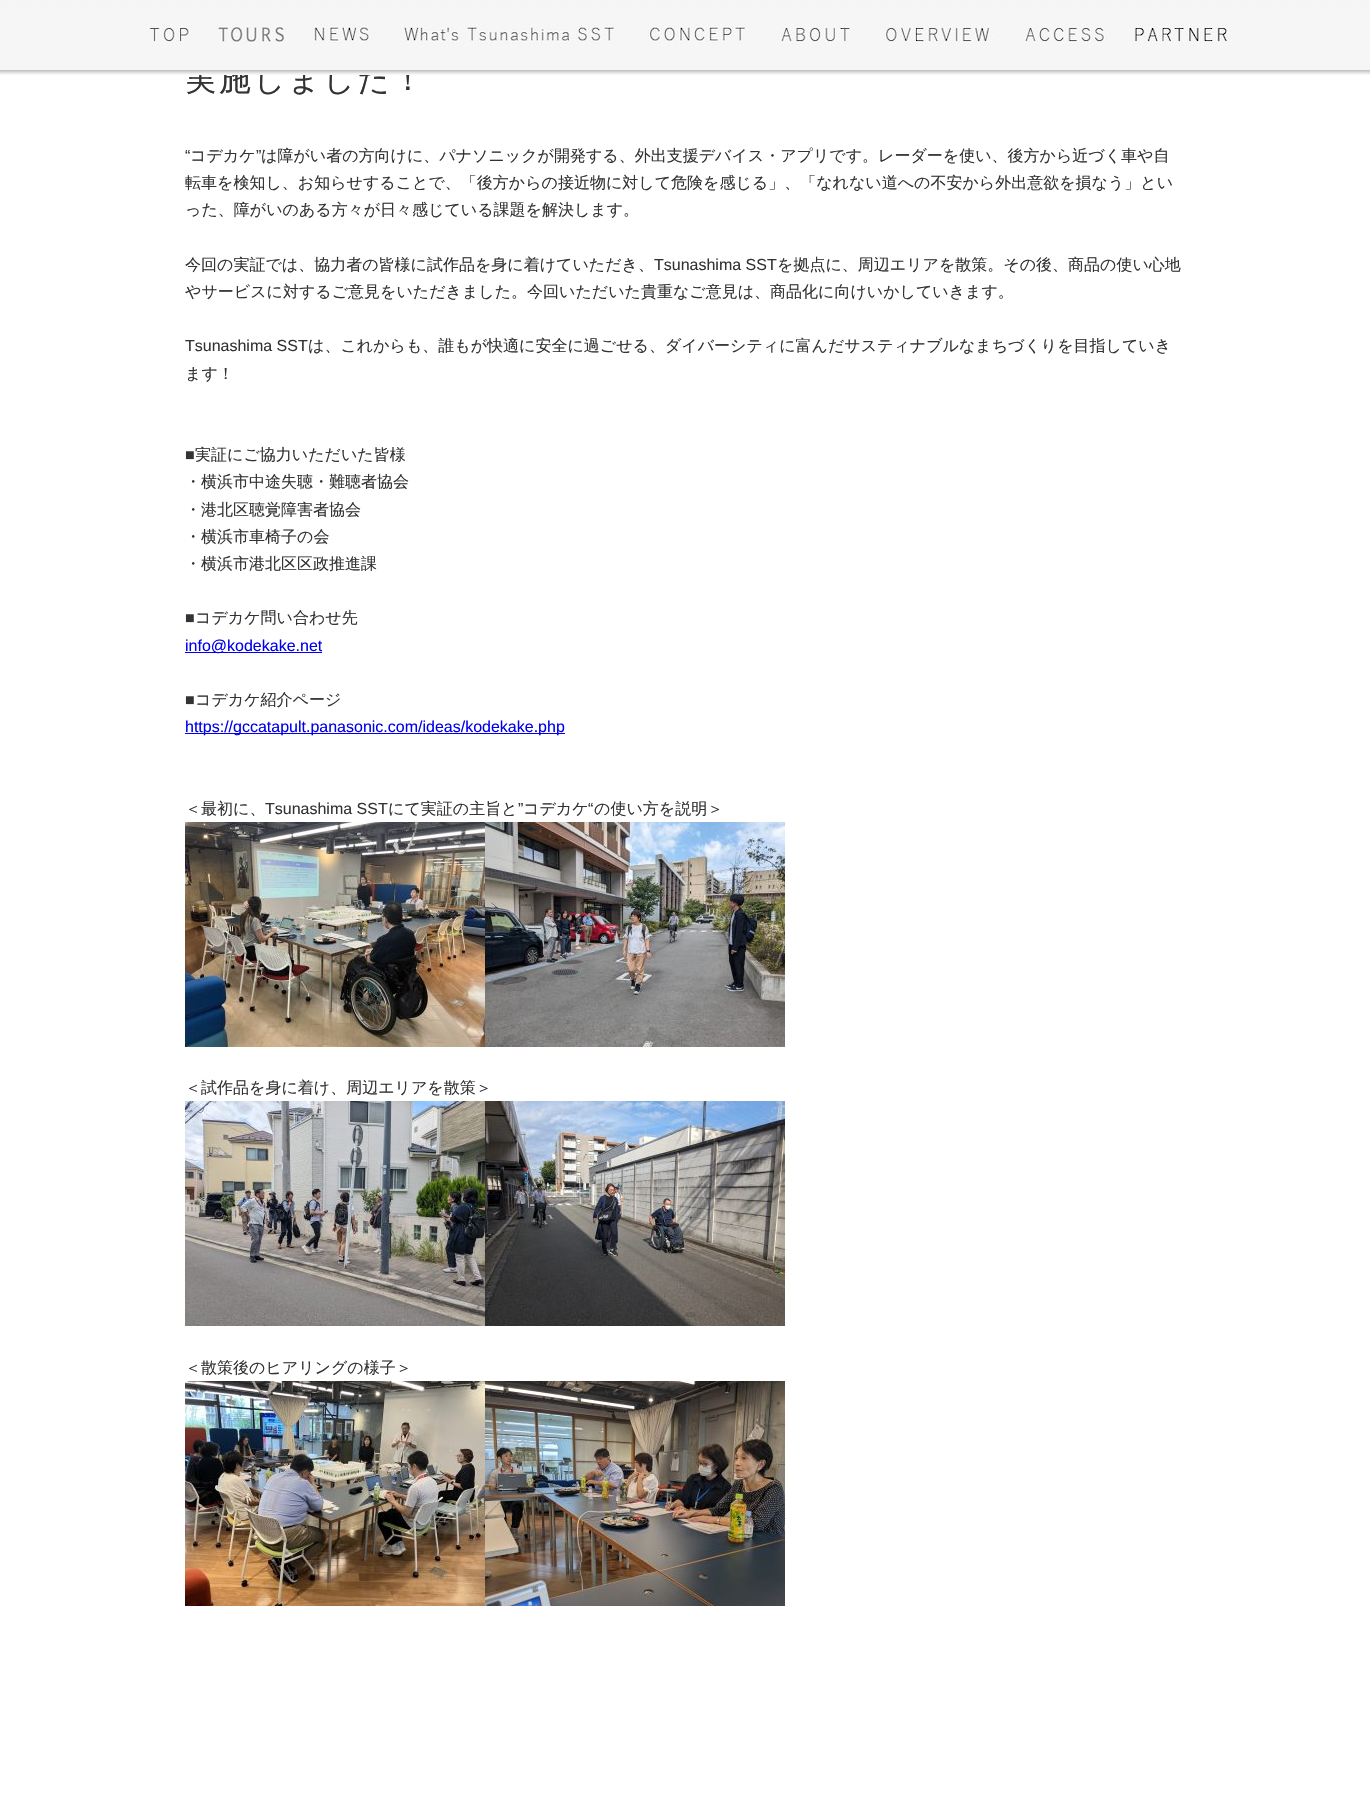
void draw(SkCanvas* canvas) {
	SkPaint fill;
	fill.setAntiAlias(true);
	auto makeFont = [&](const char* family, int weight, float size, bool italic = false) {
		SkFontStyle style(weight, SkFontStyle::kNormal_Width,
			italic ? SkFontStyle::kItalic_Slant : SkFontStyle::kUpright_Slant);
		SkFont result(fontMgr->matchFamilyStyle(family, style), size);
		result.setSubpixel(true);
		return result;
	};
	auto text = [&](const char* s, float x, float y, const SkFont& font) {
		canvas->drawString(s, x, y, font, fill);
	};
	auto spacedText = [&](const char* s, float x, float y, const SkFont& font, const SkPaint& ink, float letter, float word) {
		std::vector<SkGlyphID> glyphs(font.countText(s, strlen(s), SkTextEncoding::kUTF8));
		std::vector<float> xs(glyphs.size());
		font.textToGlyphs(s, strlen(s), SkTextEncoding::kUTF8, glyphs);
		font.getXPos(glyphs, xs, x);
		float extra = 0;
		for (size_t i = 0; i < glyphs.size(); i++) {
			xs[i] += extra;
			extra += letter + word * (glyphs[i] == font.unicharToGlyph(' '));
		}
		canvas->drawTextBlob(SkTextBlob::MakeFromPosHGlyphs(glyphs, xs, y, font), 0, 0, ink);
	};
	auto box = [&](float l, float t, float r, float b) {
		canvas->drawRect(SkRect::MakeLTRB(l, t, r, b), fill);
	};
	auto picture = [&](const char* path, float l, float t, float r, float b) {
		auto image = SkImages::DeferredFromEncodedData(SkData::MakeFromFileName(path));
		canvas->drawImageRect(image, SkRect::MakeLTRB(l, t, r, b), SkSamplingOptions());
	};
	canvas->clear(0xFFFFFFFF);
	fill.setColor(0xFF0000EE);
	box(185, 652, 322, 653);
	box(185, 733, 565, 734);
	picture("image10.png", 185, 822, 485, 1047);
	picture("image11.png", 485, 822, 785, 1047);
	picture("image12.png", 185, 1101, 485, 1326);
	picture("image13.png", 485, 1101, 785, 1326);
	picture("image14.png", 185, 1381, 485, 1606);
	picture("image15.png", 485, 1381, 785, 1606);
	auto font1 = makeFont("WenQuanYi Zen Hei", 500, 32);
	fill.setColor(0xFF333333);
	spacedText("実施しました！", 185, 90, font1, fill, 2, 0);
	picture("image0.png", 0, 0, 1370, 75);
	picture("image6.png", 763, 15, 868, 54);
	picture("image9.png", 1122, 15, 1239, 54);
	picture("image8.png", 1007, 15, 1122, 54);
	picture("image7.png", 868, 15, 1007, 54);
	picture("image5.png", 632, 15, 763, 54);
	picture("image4.png", 387, 15, 632, 54);
	picture("image3.png", 297, 15, 387, 54);
	picture("image2.png", 207, 15, 297, 54);
	picture("image1.png", 131, 15, 207, 54);
	auto font2 = makeFont("Liberation Sans", 400, 16);
	text("“", 185, 161, font2);
	auto font3 = makeFont("WenQuanYi Zen Hei", 500, 16);
	text("コデカケ", 190, 161, font3);
	text("”", 256, 161, font2);
	text("は障がい者の方向けに、パナソニックが開発する、外出支援デバイス・アプリです。レーダーを使い、後方から近づく車や自", 261, 161, font3);
	text("転車を検知し、お知らせすることで、「後方からの接近物に対して危険を感じる」、「なれない道への不安から外出意欲を損なう」とい", 185, 188, font3);
	text("った、障がいのある方々が日々感じている課題を解決します。", 185, 215, font3);
	text("今回の実証では、協力者の皆様に試作品を身に着けていただき、", 185, 270, font3);
	text("Tsunashima SST", 654, 270, font2);
	text("を拠点に、周辺エリアを散策。その後、商品の使い心地", 777, 270, font3);
	text("やサービスに対するご意見をいただきました。今回いただいた貴重なご意見は、商品化に向けいかしていきます。", 185, 297, font3);
	text("Tsunashima SST", 185, 351, font2);
	text("は、これからも、誰もが快適に安全に過ごせる、ダイバーシティに富んだサスティナブルなまちづくりを目指していき", 308, 351, font3);
	text("ます！", 185, 379, font3);
	text("■", 185, 460, font2);
	text("実証にご協力いただいた皆様", 195, 460, font3);
	text("・横浜市中途失聴・難聴者協会", 185, 487, font3);
	text("・港北区聴覚障害者協会", 185, 515, font3);
	text("・横浜市車椅子の会", 185, 542, font3);
	text("・横浜市港北区区政推進課", 185, 569, font3);
	text("■", 185, 623, font2);
	text("コデカケ問い合わせ先", 195, 623, font3);
	fill.setColor(0xFF0000EE);
	text("info@kodekake.net", 185, 651, font2);
	fill.setColor(0xFF333333);
	text("■", 185, 705, font2);
	text("コデカケ紹介ページ", 195, 705, font3);
	fill.setColor(0xFF0000EE);
	text("https://gccatapult.panasonic.com/ideas/kodekake.php", 185, 732, font2);
	fill.setColor(0xFF333333);
	text("＜最初に、", 185, 814, font3);
	text("Tsunashima SST", 265, 814, font2);
	text("にて実証の主旨と", 388, 814, font3);
	text("”", 518, 814, font2);
	text("コデカケ", 523, 814, font3);
	text("“", 588, 814, font2);
	text("の使い方を説明＞", 594, 814, font3);
	text("＜試作品を身に着け、周辺エリアを散策＞", 185, 1093, font3);
	text("＜散策後のヒアリングの様子＞", 185, 1373, font3);
}
